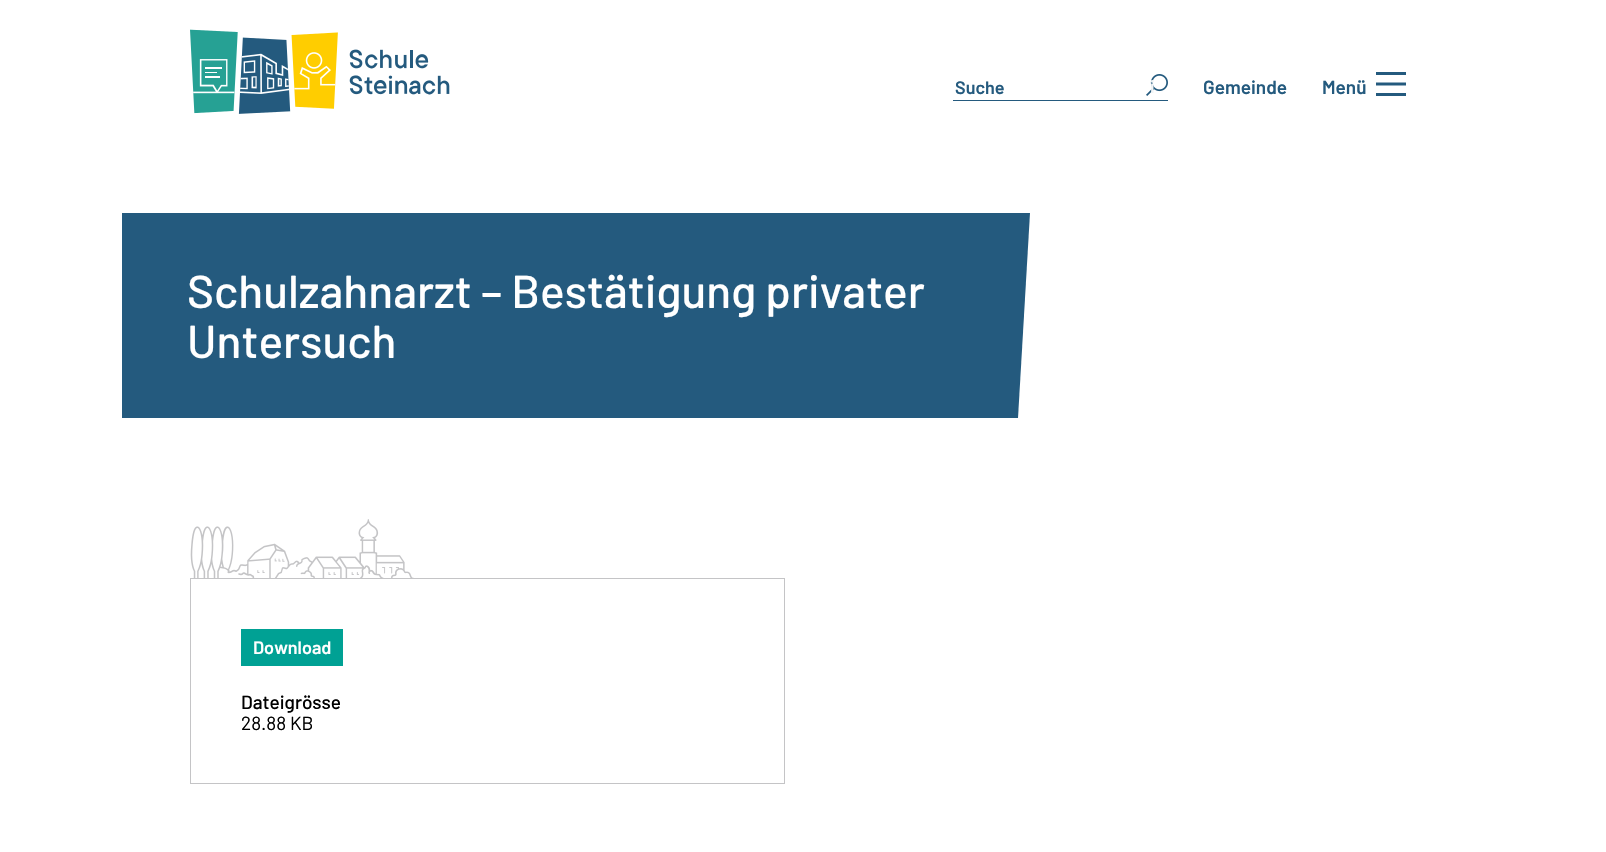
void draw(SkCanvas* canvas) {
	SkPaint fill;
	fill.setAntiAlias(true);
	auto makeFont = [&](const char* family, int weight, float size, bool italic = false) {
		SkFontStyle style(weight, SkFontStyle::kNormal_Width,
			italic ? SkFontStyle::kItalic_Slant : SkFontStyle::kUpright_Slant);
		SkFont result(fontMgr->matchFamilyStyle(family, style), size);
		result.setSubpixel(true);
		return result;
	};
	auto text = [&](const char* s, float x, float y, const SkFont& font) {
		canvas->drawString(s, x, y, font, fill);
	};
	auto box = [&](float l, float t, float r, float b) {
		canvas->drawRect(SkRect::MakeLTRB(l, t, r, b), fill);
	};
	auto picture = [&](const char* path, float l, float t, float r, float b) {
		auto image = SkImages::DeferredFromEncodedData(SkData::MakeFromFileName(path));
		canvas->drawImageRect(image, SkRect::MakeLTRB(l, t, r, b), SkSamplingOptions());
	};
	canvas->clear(0xFFFFFFFF);
	picture("image0.png", 190, 29, 450, 114);
	picture("image1.png", 1146, 74, 1168, 96);
	fill.setColor(0xFF245A7E);
	box(953, 100, 1168, 101);
	box(1376, 72, 1406, 75);
	fill.setStyle(SkPaint::kStroke_Style);
	fill.setStrokeWidth(3);
	canvas->drawPath(SkPathBuilder().moveTo(1376, 84).lineTo(1406, 84).detach(), fill);
	fill.setStyle(SkPaint::kFill_Style);
	box(1376, 93, 1406, 96);
	canvas->drawPath(SkPathBuilder().moveTo(122, 213).lineTo(1030, 213).lineTo(1018, 418).lineTo(122, 418).close().detach(), fill);
	picture("image2.png", 190, 519, 414, 578);
	fill.setStyle(SkPaint::kStroke_Style);
	fill.setStrokeWidth(1);
	fill.setColor(0xFFC4C4C6);
	canvas->drawRect(SkRect::MakeLTRB(190.5f, 578.5f, 784.5f, 783.5f), fill);
	fill.setStyle(SkPaint::kFill_Style);
	fill.setColor(0xFF00A194);
	box(241, 629, 343, 666);
	auto font1 = makeFont("Barlow", 600, 18);
	fill.setColor(0xFF245A7E);
	text("Suche", 955, 94, font1);
	fill.setColor(0xFFF0F4F6);
	text("i", 1150, 93, font1);
	auto font2 = makeFont("Barlow", 600, 19);
	fill.setColor(0xFF245A7E);
	text("Gemeinde", 1203, 94, font2);
	text("Menü", 1322, 94, font2);
	auto font3 = makeFont("Barlow", 500, 46);
	fill.setColor(0xFFFFFFFF);
	text("Schulzahnarzt – Bestätigung privater", 187, 308, font3);
	text("Untersuch", 187, 358, font3);
	text("Download", 253, 654, font1);
	auto font4 = makeFont("Barlow", 500, 19);
	fill.setColor(0xFF000000);
	text("Dateigrösse", 241, 709, font4);
	auto font5 = makeFont("Barlow", 400, 19);
	text("28.88 KB", 241, 730, font5);
}
